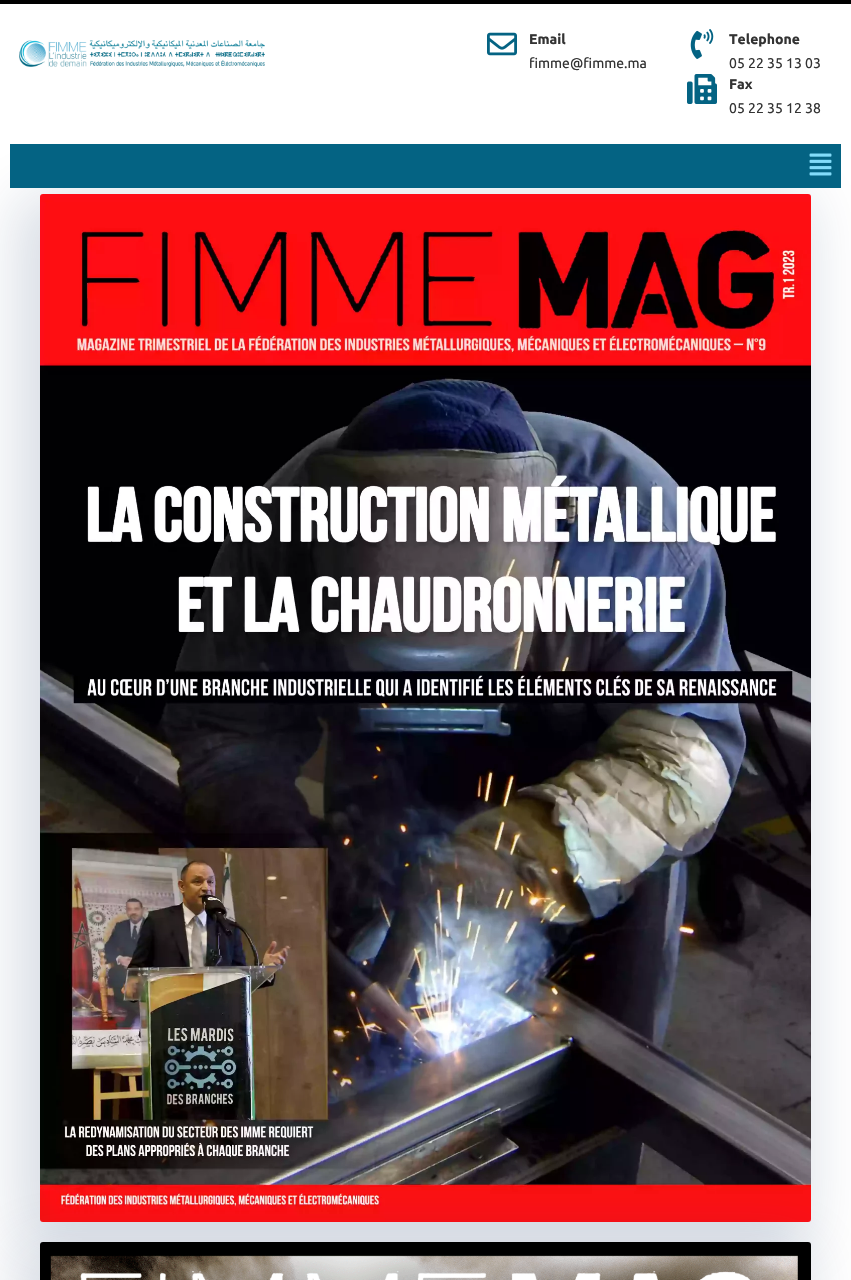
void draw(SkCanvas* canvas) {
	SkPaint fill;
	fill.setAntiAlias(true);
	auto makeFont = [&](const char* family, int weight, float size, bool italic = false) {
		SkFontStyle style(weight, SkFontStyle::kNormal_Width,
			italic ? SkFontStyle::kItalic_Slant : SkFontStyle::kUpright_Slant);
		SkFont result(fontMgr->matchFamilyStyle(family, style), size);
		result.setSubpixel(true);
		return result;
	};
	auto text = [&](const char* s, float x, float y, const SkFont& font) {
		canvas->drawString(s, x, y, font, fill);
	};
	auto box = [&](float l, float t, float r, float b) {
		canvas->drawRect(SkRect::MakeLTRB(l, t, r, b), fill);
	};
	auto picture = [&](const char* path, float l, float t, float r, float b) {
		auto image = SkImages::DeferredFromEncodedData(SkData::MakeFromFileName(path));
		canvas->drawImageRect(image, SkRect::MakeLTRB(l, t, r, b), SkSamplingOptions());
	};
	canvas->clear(0xFFFFFFFF);
	fill.setColor(0xFF000000);
	box(0, 0, 851, 4);
	picture("image0.png", 19, 40, 265, 67);
	picture("image1.png", 487, 32, 517, 56);
	picture("image2.png", 690, 29, 714, 59);
	picture("image3.png", 687, 74, 717, 104);
	fill.setColor(0x2B102D5E);
	fill.setMaskFilter(SkMaskFilter::MakeBlur(kNormal_SkBlurStyle, 28.5f));
	canvas->drawRoundRect(SkRect::MakeLTRB(18, 196, 809, 1244), 13, 13, fill);
	fill.setMaskFilter(nullptr);
	fill.setColor(0xFF046383);
	box(10, 144, 841, 188);
	picture("image4.png", 809, 153, 832, 176);
	picture("image5.png", 40, 194, 811, 1222);
	fill.setColor(0x2B102D5E);
	fill.setMaskFilter(SkMaskFilter::MakeBlur(kNormal_SkBlurStyle, 28.5f));
	canvas->drawRoundRect(SkRect::MakeLTRB(18, 1244, 809, 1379), 13, 13, fill);
	fill.setMaskFilter(nullptr);
	picture("image6.png", 40, 1242, 811, 1280);
	auto font1 = makeFont("Ubuntu", 700, 14);
	fill.setColor(0xFF333333);
	text("Email", 529, 44, font1);
	auto font2 = makeFont("Ubuntu", 400, 14);
	text("fimme@fimme.ma", 529, 68, font2);
	text("Telephone", 729, 44, font1);
	text("05 22 35 13 03", 729, 68, font2);
	text("Fax", 729, 89, font1);
	text("05 22 35 12 38", 729, 113, font2);
}
